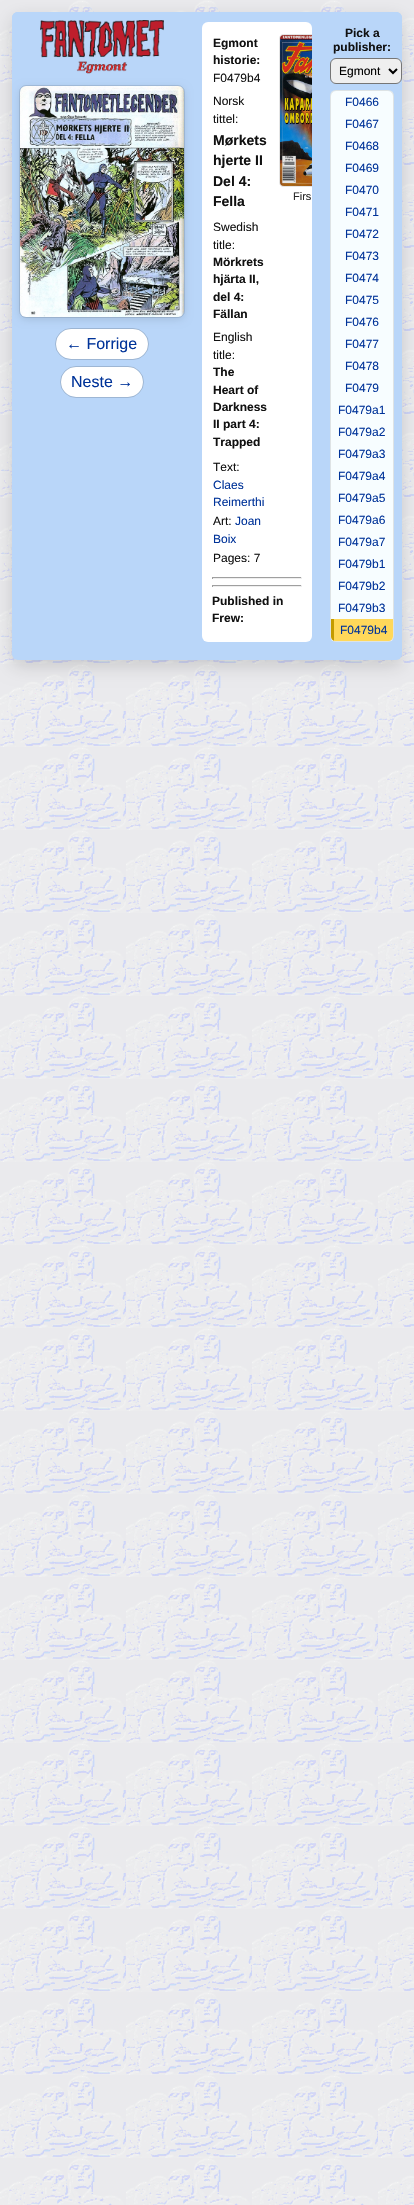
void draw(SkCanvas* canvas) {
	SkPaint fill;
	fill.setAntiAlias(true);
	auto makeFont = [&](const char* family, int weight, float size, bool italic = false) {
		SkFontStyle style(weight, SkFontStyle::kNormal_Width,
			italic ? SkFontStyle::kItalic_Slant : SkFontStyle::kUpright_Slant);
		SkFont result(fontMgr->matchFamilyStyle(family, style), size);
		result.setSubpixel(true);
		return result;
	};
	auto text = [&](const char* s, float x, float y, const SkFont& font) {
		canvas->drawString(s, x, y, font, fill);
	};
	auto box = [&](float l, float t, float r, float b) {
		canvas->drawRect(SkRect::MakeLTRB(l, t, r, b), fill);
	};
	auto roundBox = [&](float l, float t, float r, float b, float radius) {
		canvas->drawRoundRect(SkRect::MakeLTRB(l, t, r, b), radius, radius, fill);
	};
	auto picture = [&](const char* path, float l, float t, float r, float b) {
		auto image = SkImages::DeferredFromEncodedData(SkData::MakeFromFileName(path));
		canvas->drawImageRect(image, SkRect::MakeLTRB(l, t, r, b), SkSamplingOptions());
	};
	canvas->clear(0xFFFFFFFF);
	picture("image0.png", 0, 0, 414, 2205);
	fill.setColor(0x26000000);
	fill.setMaskFilter(SkMaskFilter::MakeBlur(kNormal_SkBlurStyle, 9));
	canvas->drawRoundRect(SkRect::MakeLTRB(12, 18, 402, 666), 6, 6, fill);
	fill.setMaskFilter(nullptr);
	fill.setColor(0xFFB9D6F9);
	roundBox(12, 12, 402, 660, 6);
	canvas->drawPath(SkPathBuilder().moveTo(18, 12).lineTo(192, 12).lineTo(192, 413).lineTo(12, 413).lineTo(12, 18).cubicTo(12, 14.5f, 14.5f, 12, 18, 12).close().detach(), fill);
	picture("image1.png", 40, 20, 164, 74);
	fill.setColor(0x1F000000);
	fill.setMaskFilter(SkMaskFilter::MakeBlur(kNormal_SkBlurStyle, 4));
	canvas->drawRoundRect(SkRect::MakeLTRB(20, 88, 184, 319), 6, 6, fill);
	fill.setMaskFilter(nullptr);
	picture("image2.png", 20, 86, 184, 317);
	fill.setStyle(SkPaint::kStroke_Style);
	fill.setStrokeWidth(1);
	fill.setColor(0x1A000000);
	canvas->drawRoundRect(SkRect::MakeLTRB(19.5f, 85.5f, 184.5f, 317.5f), 6.5f, 6.5f, fill);
	fill.setStyle(SkPaint::kFill_Style);
	fill.setColor(0xFFFFFFFF);
	roundBox(56, 329, 148, 359, 15);
	fill.setStyle(SkPaint::kStroke_Style);
	fill.setColor(0x26000000);
	canvas->drawRoundRect(SkRect::MakeLTRB(55.5f, 328.5f, 148.5f, 359.5f), 15.5f, 15.5f, fill);
	fill.setStyle(SkPaint::kFill_Style);
	fill.setColor(0xFFFFFFFF);
	roundBox(61, 367, 143, 397, 15);
	fill.setStyle(SkPaint::kStroke_Style);
	fill.setColor(0x26000000);
	canvas->drawRoundRect(SkRect::MakeLTRB(60.5f, 366.5f, 143.5f, 397.5f), 15.5f, 15.5f, fill);
	fill.setStyle(SkPaint::kFill_Style);
	fill.setColor(0xFFFFFFFF);
	roundBox(202, 22, 312, 642, 6);
	picture("image3.png", 280, 35, 312, 186);
	fill.setColor(0x1A000000);
	canvas->drawPath(SkPathBuilder().moveTo(284, 34).cubicTo(281, 34, 279, 36, 279, 39).lineTo(279, 182).cubicTo(279, 185, 281, 187, 284, 187).lineTo(312, 187).lineTo(312, 34).close().detach(), fill);
	fill.setColor(0xFF9F9F9F);
	box(212, 577, 302, 578);
	fill.setColor(0xFFEEEEEE);
	box(301, 577, 302, 579);
	box(212, 578, 302, 579);
	fill.setColor(0xFF9F9F9F);
	box(212, 577, 213, 579);
	box(212, 585, 302, 586);
	fill.setColor(0xFFEEEEEE);
	box(301, 585, 302, 587);
	box(212, 586, 302, 587);
	fill.setColor(0xFF9F9F9F);
	box(212, 585, 213, 587);
	fill.setColor(0xFFB9D6F9);
	canvas->drawPath(SkPathBuilder().moveTo(322, 12).lineTo(396, 12).cubicTo(399.5f, 12, 402, 14.5f, 402, 18).lineTo(402, 650).lineTo(322, 650).close().detach(), fill);
	fill.setColor(0xFFEFEFEF);
	canvas->drawRoundRect(SkRect::MakeLTRB(330.5f, 58.5f, 401.5f, 83.5f), 5.5f, 5.5f, fill);
	fill.setStyle(SkPaint::kStroke_Style);
	fill.setColor(0xFF767676);
	canvas->drawRoundRect(SkRect::MakeLTRB(330.5f, 58.5f, 401.5f, 83.5f), 5.5f, 5.5f, fill);
	fill.setStrokeWidth(2);
	fill.setColor(0xFF000000);
	canvas->drawPath(SkPathBuilder().moveTo(389, 69).lineTo(393, 73).lineTo(397, 69).detach(), fill);
	fill.setStyle(SkPaint::kFill_Style);
	fill.setColor(0xFFF7FDFF);
	roundBox(330, 90, 394, 642, 6);
	fill.setStyle(SkPaint::kStroke_Style);
	fill.setStrokeWidth(1);
	fill.setColor(0x1A000000);
	canvas->drawRoundRect(SkRect::MakeLTRB(330.5f, 90.5f, 393.5f, 641.5f), 5.5f, 5.5f, fill);
	fill.setStyle(SkPaint::kFill_Style);
	fill.setColor(0xFFFFD85A);
	canvas->drawPath(SkPathBuilder().moveTo(331, 619).lineTo(393, 619).lineTo(393, 636).cubicTo(393, 639, 391, 641, 388, 641).lineTo(336, 641).cubicTo(333, 641, 331, 639, 331, 636).close().detach(), fill);
	canvas->save();
	canvas->clipPath(SkPathBuilder().moveTo(336, 91).lineTo(388, 91).cubicTo(391, 91, 393, 93, 393, 96).lineTo(393, 636).cubicTo(393, 639, 391, 641, 388, 641).lineTo(336, 641).cubicTo(333, 641, 331, 639, 331, 636).lineTo(331, 96).cubicTo(331, 93, 333, 91, 336, 91).close().detach(), true);
	fill.setColor(0xFFC49B00);
	box(331, 619, 334, 641);
	canvas->restore();
	auto font1 = makeFont("Liberation Sans", 400, 16);
	fill.setColor(0xFF003399);
	text("← Forrige", 66, 349, font1);
	text("Neste →", 71, 387, font1);
	auto font2 = makeFont("Liberation Sans", 700, 12);
	fill.setColor(0xFF111111);
	text("Egmont", 213, 47, font2);
	text("historie:", 213, 64, font2);
	auto font3 = makeFont("Liberation Sans", 400, 12);
	text("F0479b4", 213, 82, font3);
	text("Norsk", 213, 105, font3);
	text("tittel:", 213, 123, font3);
	auto font4 = makeFont("Liberation Sans", 700, 14);
	text("Mørkets", 213, 145, font4);
	text("hjerte II", 213, 165, font4);
	text("Del 4:", 213, 186, font4);
	text("Fella", 213, 206, font4);
	text("Swedish", 213, 231, font3);
	text("title:", 213, 249, font3);
	text("Mörkrets", 213, 266, font2);
	text("hjärta II,", 213, 283, font2);
	text("del 4:", 213, 301, font2);
	text("Fällan", 213, 318, font2);
	text("English", 213, 341, font3);
	text("title:", 213, 359, font3);
	text("The", 213, 376, font2);
	text("Heart of", 213, 394, font2);
	text("Darkness", 213, 411, font2);
	text("II part 4:", 213, 428, font2);
	text("Trapped", 213, 446, font2);
	text("Text:", 213, 471, font3);
	fill.setColor(0xFF003399);
	text("Claes", 213, 489, font3);
	text("Reimerthi", 213, 506, font3);
	fill.setColor(0xFF111111);
	text("Art:", 213, 525, font3);
	fill.setColor(0xFF003399);
	text("Joan", 235, 525, font3);
	text("Boix", 213, 543, font3);
	fill.setColor(0xFF111111);
	text("Pages: 7", 213, 562, font3);
	auto font5 = makeFont("Liberation Sans", 400, 11);
	fill.setColor(0xFF292929);
	text("Firs", 293, 200, font5);
	fill.setColor(0xFF111111);
	text("Published in", 212, 605, font2);
	text("Frew:", 212, 622, font2);
	text("Pick a", 345, 37, font2);
	text("publisher:", 333, 51, font2);
	fill.setColor(0xFF000000);
	text("Egmont", 339, 75, font3);
	fill.setColor(0xFF003399);
	text("F0466", 345, 106, font3);
	text("F0467", 345, 128, font3);
	text("F0468", 345, 150, font3);
	text("F0469", 345, 172, font3);
	text("F0470", 345, 194, font3);
	text("F0471", 345, 216, font3);
	text("F0472", 345, 238, font3);
	text("F0473", 345, 260, font3);
	text("F0474", 345, 282, font3);
	text("F0475", 345, 304, font3);
	text("F0476", 345, 326, font3);
	text("F0477", 345, 348, font3);
	text("F0478", 345, 370, font3);
	text("F0479", 345, 392, font3);
	text("F0479a1", 338, 414, font3);
	text("F0479a2", 338, 436, font3);
	text("F0479a3", 338, 458, font3);
	text("F0479a4", 338, 480, font3);
	text("F0479a5", 338, 502, font3);
	text("F0479a6", 338, 524, font3);
	text("F0479a7", 338, 546, font3);
	text("F0479b1", 338, 568, font3);
	text("F0479b2", 338, 590, font3);
	text("F0479b3", 338, 612, font3);
	text("F0479b4", 340, 634, font3);
}
